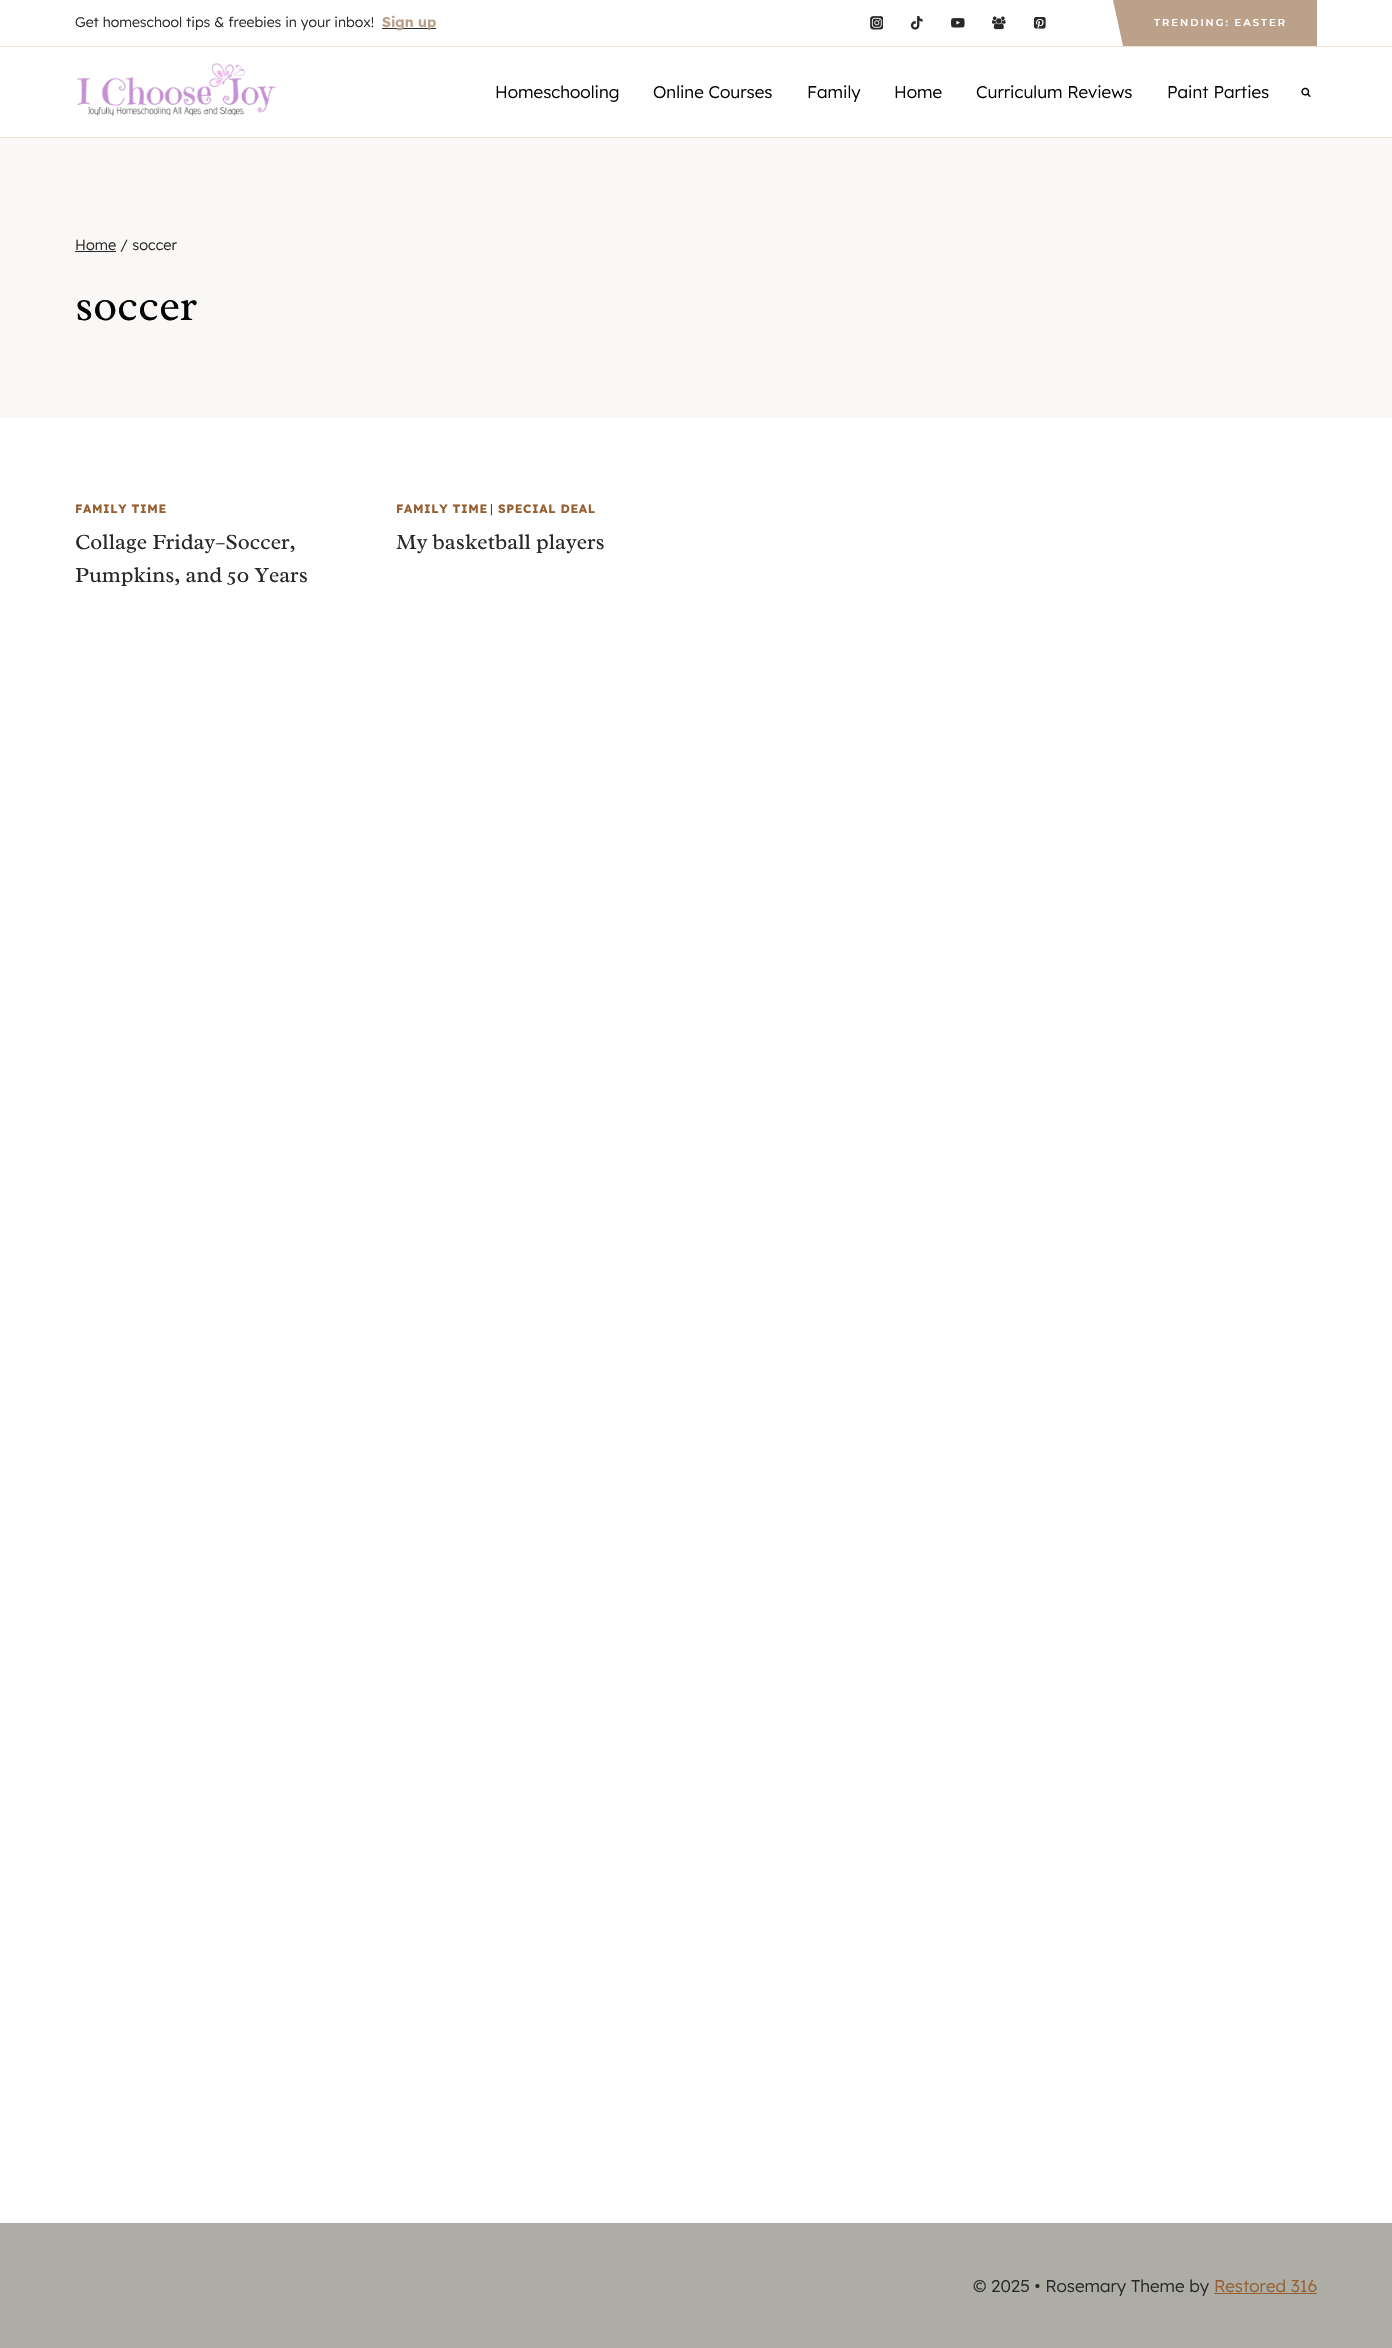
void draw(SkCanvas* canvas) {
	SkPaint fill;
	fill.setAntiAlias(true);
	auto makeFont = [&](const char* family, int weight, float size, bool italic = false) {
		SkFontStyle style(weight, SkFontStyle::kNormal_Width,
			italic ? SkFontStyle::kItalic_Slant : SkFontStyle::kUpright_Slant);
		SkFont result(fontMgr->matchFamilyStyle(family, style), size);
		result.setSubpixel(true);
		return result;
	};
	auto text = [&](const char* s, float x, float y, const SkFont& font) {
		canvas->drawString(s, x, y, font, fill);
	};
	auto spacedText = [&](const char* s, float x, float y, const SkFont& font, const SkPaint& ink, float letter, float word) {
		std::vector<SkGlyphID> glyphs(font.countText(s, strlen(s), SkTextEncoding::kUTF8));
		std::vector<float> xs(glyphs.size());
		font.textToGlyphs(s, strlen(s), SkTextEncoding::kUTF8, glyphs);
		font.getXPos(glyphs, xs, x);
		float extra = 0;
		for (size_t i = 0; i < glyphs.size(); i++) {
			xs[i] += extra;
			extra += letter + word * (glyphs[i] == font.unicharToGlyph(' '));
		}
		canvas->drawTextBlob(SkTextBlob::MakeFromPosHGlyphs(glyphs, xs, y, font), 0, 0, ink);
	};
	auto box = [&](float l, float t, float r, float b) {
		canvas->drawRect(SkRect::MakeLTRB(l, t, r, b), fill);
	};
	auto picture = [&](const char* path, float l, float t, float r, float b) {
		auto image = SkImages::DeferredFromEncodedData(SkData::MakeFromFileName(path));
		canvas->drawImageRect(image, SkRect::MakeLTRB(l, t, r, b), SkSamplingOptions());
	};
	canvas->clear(0xFFFFFFFF);
	fill.setColor(0xFFECE0D2);
	box(0, 46, 1392, 47);
	fill.setColor(0xFF292929);
	box(382, 28, 436, 29);
	picture("image0.png", 870, 16, 883, 30);
	picture("image1.png", 910, 16, 923, 30);
	picture("image2.png", 951, 18, 965, 28);
	picture("image3.png", 992, 16, 1006, 30);
	picture("image4.png", 1033, 17, 1046, 29);
	fill.setColor(0xFFBBA189);
	canvas->drawPath(SkPathBuilder().moveTo(1113, 0).lineTo(1306, 0).lineTo(1317, 46).lineTo(1123, 46).close().detach(), fill);
	box(1306, 0, 1317, 46);
	fill.setColor(0xFFECE0D2);
	box(0, 137, 1392, 138);
	picture("image5.png", 77, 63, 276, 116);
	picture("image6.png", 1301, 87, 1311, 97);
	fill.setColor(0xFFF9F8F6);
	box(0, 138, 1392, 418);
	fill.setColor(0xFF292929);
	box(75, 251, 116, 252);
	fill.setColor(0xFFADACA5);
	box(0, 2223, 1392, 2348);
	fill.setColor(0xFF955F32);
	box(1214, 2293, 1317, 2294);
	auto font1 = makeFont("Lexend", 300, 14);
	fill.setColor(0xFF292929);
	text("Get homeschool tips & freebies in your inbox!", 75, 27, font1);
	auto font2 = makeFont("Lexend", 700, 14);
	fill.setColor(0xFFBBA189);
	text("Sign up", 382, 27, font2);
	auto font3 = makeFont("Montserrat", 100, 10);
	fill.setColor(0xFFFFFFFF);
	spacedText("TRENDING: EASTER", 1154, 26, font3, fill, 2, 0);
	auto font4 = makeFont("Lexend", 300, 17);
	fill.setColor(0xFF030303);
	text("Homeschooling", 495, 98, font4);
	text("Online Courses", 653, 98, font4);
	text("Family", 807, 98, font4);
	text("Home", 894, 98, font4);
	text("Curriculum Reviews", 976, 98, font4);
	text("Paint Parties", 1167, 98, font4);
	auto font5 = makeFont("Lexend", 300, 14.5f);
	fill.setColor(0xFF292929);
	text("Home / soccer", 75, 250, font5);
	auto font6 = makeFont("Radley", 400, 44);
	fill.setColor(0xFF030303);
	text("soccer", 75, 320, font6);
	auto font7 = makeFont("Lexend", 700, 12);
	fill.setColor(0xFF955F32);
	spacedText("FAMILY TIME", 75, 513, font7, fill, 0.6f, 0);
	auto font8 = makeFont("Radley", 400, 22);
	fill.setColor(0xFF292929);
	text("Collage Friday–Soccer,", 75, 549, font8);
	text("Pumpkins, and 50 Years", 75, 582, font8);
	fill.setColor(0xFF955F32);
	spacedText("FAMILY TIME", 396, 513, font7, fill, 0.6f, 0);
	auto font9 = makeFont("Lexend", 300, 12);
	fill.setColor(0xFF292929);
	spacedText("|", 490, 513, font9, fill, 0.6f, 0);
	fill.setColor(0xFF955F32);
	spacedText("SPECIAL DEAL", 498, 513, font7, fill, 0.6f, 0);
	fill.setColor(0xFF292929);
	text("My basketball players", 396, 549, font8);
	text("© 2025 • Rosemary Theme by", 973, 2292, font4);
	fill.setColor(0xFF955F32);
	text("Restored 316", 1214, 2292, font4);
}
